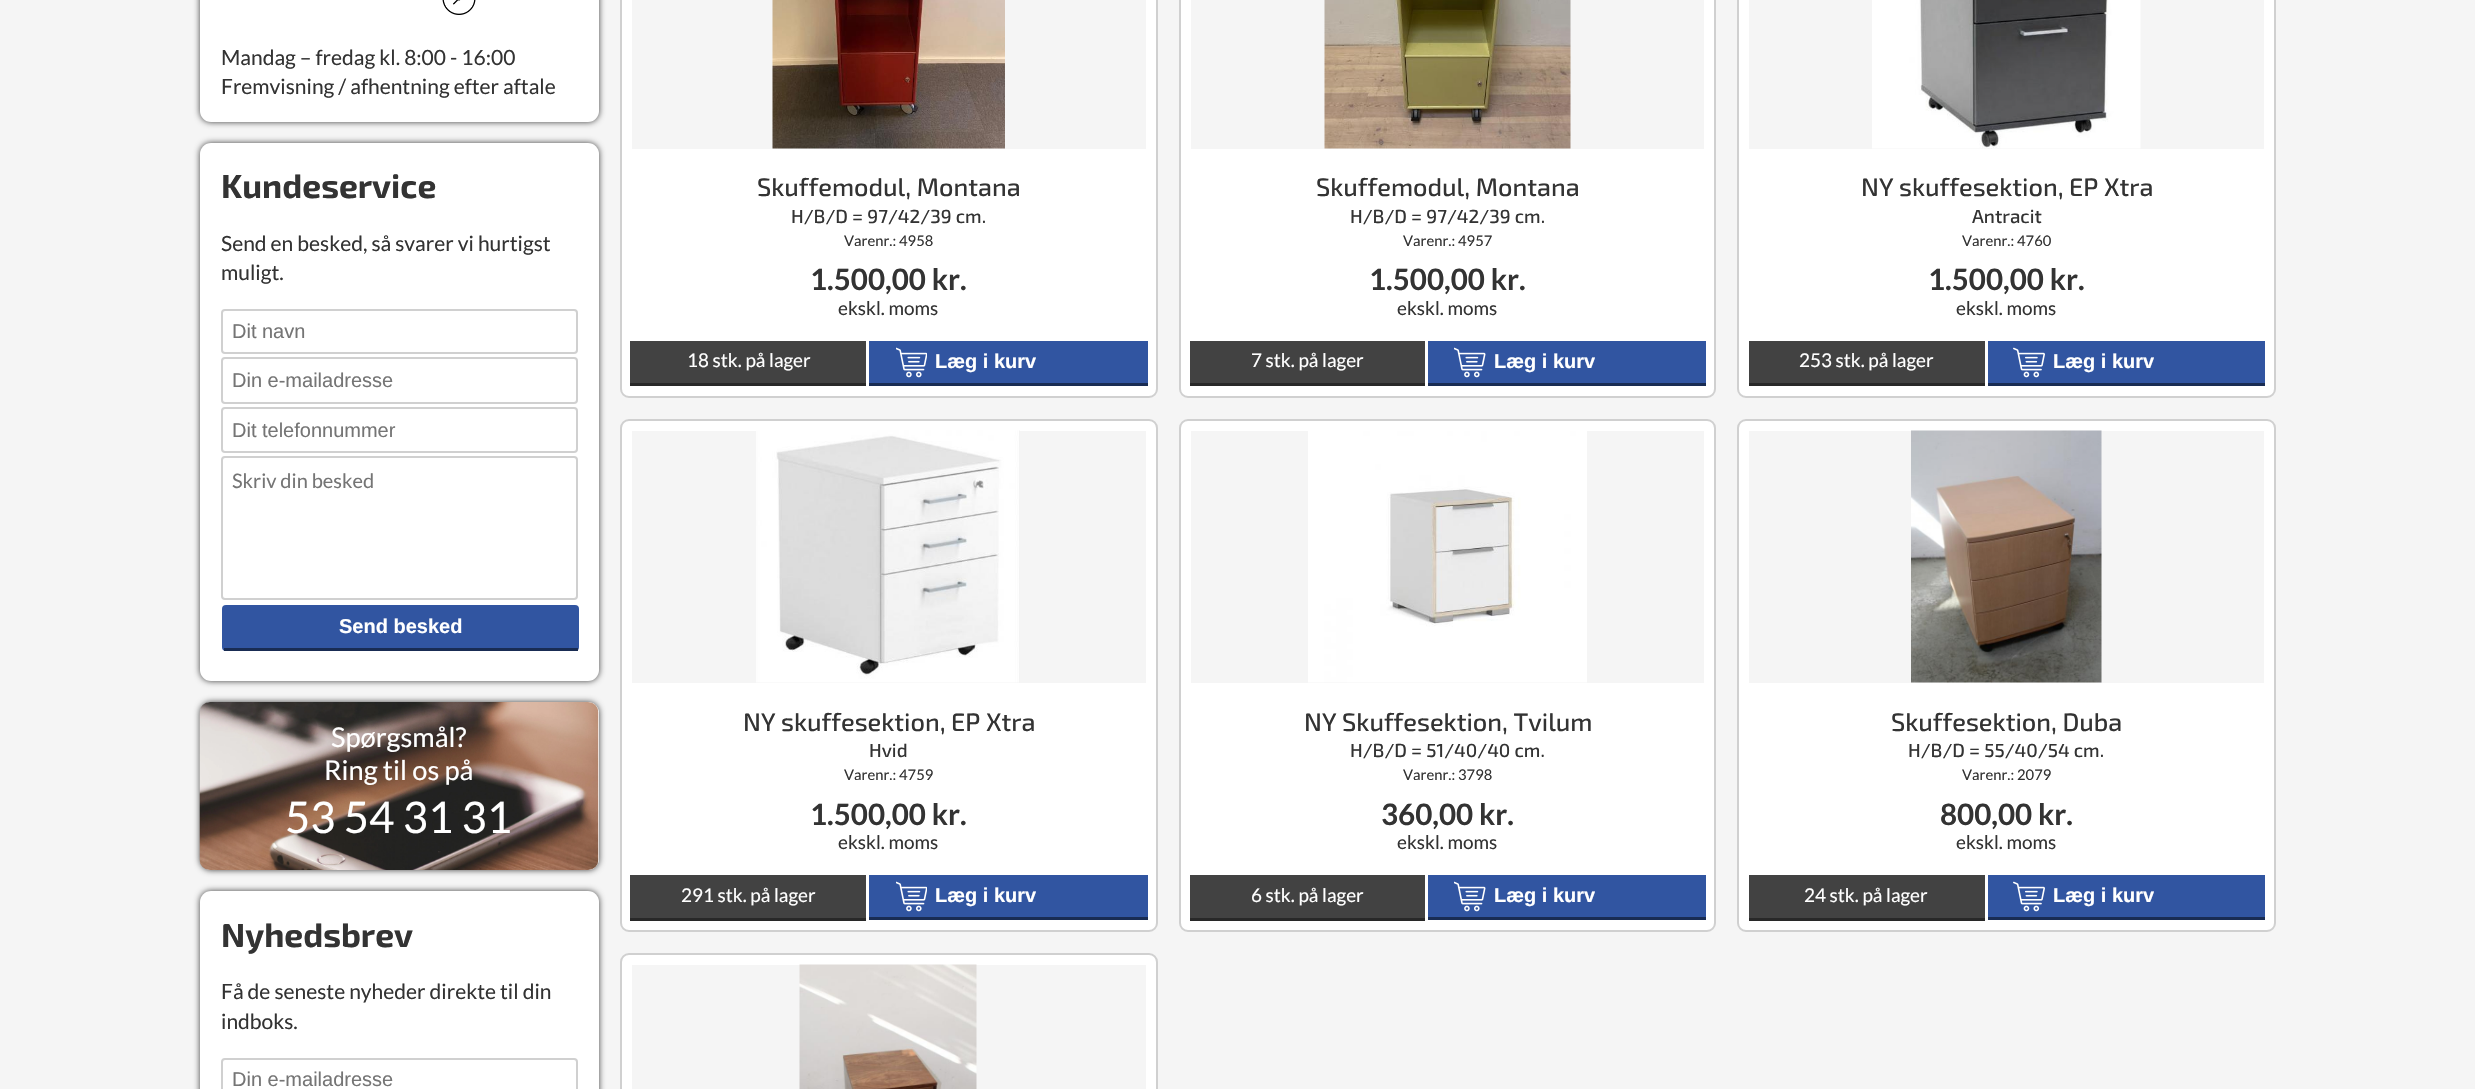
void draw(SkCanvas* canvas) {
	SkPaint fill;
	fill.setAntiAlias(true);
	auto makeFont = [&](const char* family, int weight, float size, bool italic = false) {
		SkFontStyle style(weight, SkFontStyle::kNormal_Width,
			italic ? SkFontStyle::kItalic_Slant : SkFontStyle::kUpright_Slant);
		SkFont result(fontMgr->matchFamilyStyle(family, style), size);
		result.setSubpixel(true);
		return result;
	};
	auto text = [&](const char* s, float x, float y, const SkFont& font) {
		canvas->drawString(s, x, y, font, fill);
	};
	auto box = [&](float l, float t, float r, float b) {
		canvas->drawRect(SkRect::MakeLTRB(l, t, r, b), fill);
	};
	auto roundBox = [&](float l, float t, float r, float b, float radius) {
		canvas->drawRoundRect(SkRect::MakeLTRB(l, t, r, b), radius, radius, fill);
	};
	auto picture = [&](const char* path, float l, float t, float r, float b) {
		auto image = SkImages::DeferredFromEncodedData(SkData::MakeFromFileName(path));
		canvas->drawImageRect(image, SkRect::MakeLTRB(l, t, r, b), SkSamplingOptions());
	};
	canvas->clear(0xFFF5F5F5);
	fill.setColor(0xBF000000);
	fill.setMaskFilter(SkMaskFilter::MakeBlur(kNormal_SkBlurStyle, 3));
	canvas->drawRoundRect(SkRect::MakeLTRB(200, -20, 599, 122), 11, 11, fill);
	fill.setMaskFilter(nullptr);
	fill.setColor(0xFFFFFFFF);
	roundBox(200, -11, 599, 122, 11);
	picture("image0.png", 442, 0, 476, 15);
	fill.setColor(0xBF000000);
	fill.setMaskFilter(SkMaskFilter::MakeBlur(kNormal_SkBlurStyle, 3));
	canvas->drawRoundRect(SkRect::MakeLTRB(200, 143, 599, 681), 11, 11, fill);
	fill.setMaskFilter(nullptr);
	fill.setColor(0xFFFFFFFF);
	roundBox(200, 143, 599, 681, 11);
	fill.setStyle(SkPaint::kStroke_Style);
	fill.setStrokeWidth(2);
	fill.setColor(0xFFD0D0D0);
	canvas->drawRoundRect(SkRect::MakeLTRB(222, 310, 577, 353), 3, 3, fill);
	canvas->drawRoundRect(SkRect::MakeLTRB(222, 358, 577, 403), 3, 3, fill);
	canvas->drawRoundRect(SkRect::MakeLTRB(222, 408, 577, 452), 3, 3, fill);
	canvas->drawRoundRect(SkRect::MakeLTRB(222, 457, 577, 599), 3, 3, fill);
	fill.setStyle(SkPaint::kFill_Style);
	fill.setColor(0xFF3155A1);
	roundBox(222, 605, 579, 651, 4);
	fill.setColor(0xFF192C53);
	box(224, 648, 578, 651);
	fill.setColor(0xBF000000);
	fill.setMaskFilter(SkMaskFilter::MakeBlur(kNormal_SkBlurStyle, 3));
	canvas->drawRoundRect(SkRect::MakeLTRB(200, 702, 599, 870), 11, 11, fill);
	fill.setMaskFilter(nullptr);
	fill.setColor(0xFFFFFFFF);
	roundBox(200, 702, 599, 870, 11);
	picture("image1.png", 199, 702, 599, 870);
	fill.setColor(0xBF000000);
	fill.setMaskFilter(SkMaskFilter::MakeBlur(kNormal_SkBlurStyle, 3));
	canvas->drawRoundRect(SkRect::MakeLTRB(200, 891, 599, 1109), 11, 11, fill);
	fill.setMaskFilter(nullptr);
	fill.setColor(0xFFFFFFFF);
	roundBox(200, 891, 599, 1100, 11);
	fill.setStyle(SkPaint::kStroke_Style);
	fill.setColor(0xFFD0D0D0);
	canvas->drawRoundRect(SkRect::MakeLTRB(222, 1059, 577, 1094), 3, 3, fill);
	fill.setStyle(SkPaint::kFill_Style);
	fill.setColor(0xFFFFFFFF);
	canvas->drawRoundRect(SkRect::MakeLTRB(621, -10, 1157, 397), 8, 8, fill);
	fill.setStyle(SkPaint::kStroke_Style);
	fill.setColor(0xFFD0D0D0);
	canvas->drawRoundRect(SkRect::MakeLTRB(621, -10, 1157, 397), 8, 8, fill);
	fill.setStyle(SkPaint::kFill_Style);
	fill.setColor(0xFFF5F5F5);
	box(632, 0, 1146, 149);
	picture("image2.png", 772, 0, 1005, 149);
	fill.setColor(0xFF424242);
	box(630, 341, 866, 383);
	fill.setColor(0xFF282828);
	box(630, 383, 866, 386);
	fill.setColor(0xFF3155A1);
	box(869, 341, 1148, 383);
	picture("image3.png", 896, 347, 927, 378);
	fill.setColor(0xFF192C53);
	box(869, 383, 1148, 386);
	fill.setColor(0xFFFFFFFF);
	canvas->drawRoundRect(SkRect::MakeLTRB(1180, -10, 1715, 397), 8, 8, fill);
	fill.setStyle(SkPaint::kStroke_Style);
	fill.setColor(0xFFD0D0D0);
	canvas->drawRoundRect(SkRect::MakeLTRB(1180, -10, 1715, 397), 8, 8, fill);
	fill.setStyle(SkPaint::kFill_Style);
	fill.setColor(0xFFF5F5F5);
	box(1191, 0, 1704, 149);
	picture("image4.png", 1324, 0, 1571, 149);
	fill.setColor(0xFF424242);
	box(1190, 341, 1425, 383);
	fill.setColor(0xFF282828);
	box(1190, 383, 1425, 386);
	fill.setColor(0xFF3155A1);
	box(1428, 341, 1706, 383);
	picture("image5.png", 1454, 347, 1486, 378);
	fill.setColor(0xFF192C53);
	box(1428, 383, 1706, 386);
	fill.setColor(0xFFFFFFFF);
	canvas->drawRoundRect(SkRect::MakeLTRB(1738, -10, 2275, 397), 8, 8, fill);
	fill.setStyle(SkPaint::kStroke_Style);
	fill.setColor(0xFFD0D0D0);
	canvas->drawRoundRect(SkRect::MakeLTRB(1738, -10, 2275, 397), 8, 8, fill);
	fill.setStyle(SkPaint::kFill_Style);
	fill.setColor(0xFFF5F5F5);
	box(1749, 0, 2264, 149);
	picture("image6.png", 1872, 0, 2141, 149);
	fill.setColor(0xFF424242);
	box(1749, 341, 1985, 383);
	fill.setColor(0xFF282828);
	box(1749, 383, 1985, 386);
	fill.setColor(0xFF3155A1);
	box(1988, 341, 2265, 383);
	picture("image7.png", 2013, 347, 2045, 378);
	fill.setColor(0xFF192C53);
	box(1988, 383, 2265, 386);
	fill.setColor(0xFFFFFFFF);
	canvas->drawRoundRect(SkRect::MakeLTRB(621, 420, 1157, 931), 8, 8, fill);
	fill.setStyle(SkPaint::kStroke_Style);
	fill.setColor(0xFFD0D0D0);
	canvas->drawRoundRect(SkRect::MakeLTRB(621, 420, 1157, 931), 8, 8, fill);
	fill.setStyle(SkPaint::kFill_Style);
	fill.setColor(0xFFF5F5F5);
	box(632, 431, 1146, 683);
	picture("image8.png", 756, 430, 1020, 683);
	fill.setColor(0xFF424242);
	box(630, 875, 866, 918);
	fill.setColor(0xFF282828);
	box(630, 918, 866, 921);
	fill.setColor(0xFF3155A1);
	box(869, 875, 1148, 917);
	picture("image3.png", 896, 881, 927, 912);
	fill.setColor(0xFF192C53);
	box(869, 917, 1148, 920);
	fill.setColor(0xFFFFFFFF);
	canvas->drawRoundRect(SkRect::MakeLTRB(1180, 420, 1715, 931), 8, 8, fill);
	fill.setStyle(SkPaint::kStroke_Style);
	fill.setColor(0xFFD0D0D0);
	canvas->drawRoundRect(SkRect::MakeLTRB(1180, 420, 1715, 931), 8, 8, fill);
	fill.setStyle(SkPaint::kFill_Style);
	fill.setColor(0xFFF5F5F5);
	box(1191, 431, 1704, 683);
	picture("image9.png", 1308, 431, 1587, 683);
	fill.setColor(0xFF424242);
	box(1190, 875, 1425, 918);
	fill.setColor(0xFF282828);
	box(1190, 918, 1425, 921);
	fill.setColor(0xFF3155A1);
	box(1428, 875, 1706, 917);
	picture("image5.png", 1454, 881, 1486, 912);
	fill.setColor(0xFF192C53);
	box(1428, 917, 1706, 920);
	fill.setColor(0xFFFFFFFF);
	canvas->drawRoundRect(SkRect::MakeLTRB(1738, 420, 2275, 931), 8, 8, fill);
	fill.setStyle(SkPaint::kStroke_Style);
	fill.setColor(0xFFD0D0D0);
	canvas->drawRoundRect(SkRect::MakeLTRB(1738, 420, 2275, 931), 8, 8, fill);
	fill.setStyle(SkPaint::kFill_Style);
	fill.setColor(0xFFF5F5F5);
	box(1749, 431, 2264, 683);
	picture("image10.png", 1911, 430, 2102, 683);
	fill.setColor(0xFF424242);
	box(1749, 875, 1985, 918);
	fill.setColor(0xFF282828);
	box(1749, 918, 1985, 921);
	fill.setColor(0xFF3155A1);
	box(1988, 875, 2265, 917);
	picture("image7.png", 2013, 881, 2045, 912);
	fill.setColor(0xFF192C53);
	box(1988, 917, 2265, 920);
	fill.setColor(0xFFFFFFFF);
	canvas->drawRoundRect(SkRect::MakeLTRB(621, 954, 1157, 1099), 8, 8, fill);
	fill.setStyle(SkPaint::kStroke_Style);
	fill.setColor(0xFFD0D0D0);
	canvas->drawRoundRect(SkRect::MakeLTRB(621, 954, 1157, 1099), 8, 8, fill);
	fill.setStyle(SkPaint::kFill_Style);
	fill.setColor(0xFFF5F5F5);
	box(632, 965, 1146, 1089);
	picture("image11.png", 799, 964, 977, 1089);
	auto font1 = makeFont("Lato", 400, 21);
	fill.setColor(0xFF333333);
	text("Mandag – fredag kl. 8:00 - 16:00", 221, 65, font1);
	text("Fremvisning / afhentning efter aftale", 221, 94, font1);
	auto font2 = makeFont("Exo 2", 700, 33.5f);
	text("Kundeservice", 221, 198, font2);
	text("Send en besked, så svarer vi hurtigst", 221, 251, font1);
	text("muligt.", 221, 280, font1);
	auto font3 = makeFont("Liberation Sans", 400, 20);
	fill.setColor(0xFF757575);
	text("Dit navn", 232, 338, font3);
	text("Din e-mailadresse", 232, 387, font3);
	text("Dit telefonnummer", 232, 437, font3);
	auto font4 = makeFont("Lato", 400, 20);
	text("Skriv din besked", 232, 488, font4);
	auto font5 = makeFont("Liberation Sans", 700, 20);
	fill.setColor(0xFFFFFFFF);
	text("Send besked", 339, 633, font5);
	auto font6 = makeFont("Lato", 400, 27.25f);
	text("Spørgsmål?", 331, 747, font6);
	text("Ring til os på", 324, 780, font6);
	auto font7 = makeFont("Lato", 400, 43.5f);
	text("53 54 31 31", 285, 833, font7);
	fill.setColor(0xFF333333);
	text("Nyhedsbrev", 221, 947, font2);
	text("Få de seneste nyheder direkte til din", 221, 999, font1);
	text("indboks.", 221, 1029, font1);
	fill.setColor(0xFF757575);
	text("Din e-mailadresse", 232, 1086, font3);
	auto font8 = makeFont("Exo 2", 500, 25.25f);
	fill.setColor(0xFF333333);
	text("Skuffemodul, Montana", 757, 196, font8);
	auto font9 = makeFont("Exo 2", 500, 18.9f);
	text("H/B/D = 97/42/39 cm.", 791, 223, font9);
	auto font10 = makeFont("Lato", 400, 14.75f);
	text("Varenr.: 4958", 844, 246, font10);
	auto font11 = makeFont("Lato", 700, 29.5f);
	text("1.500,00 kr.", 810, 290, font11);
	auto font12 = makeFont("Lato", 400, 18.9f);
	text("ekskl. moms", 838, 315, font12);
	fill.setColor(0xFFFFFFFF);
	text("18 stk. på lager", 687, 367, font12);
	text("Læg i kurv", 935, 368, font5);
	fill.setColor(0xFF333333);
	text("Skuffemodul, Montana", 1316, 196, font8);
	text("H/B/D = 97/42/39 cm.", 1350, 223, font9);
	text("Varenr.: 4957", 1403, 246, font10);
	text("1.500,00 kr.", 1369, 290, font11);
	text("ekskl. moms", 1397, 315, font12);
	fill.setColor(0xFFFFFFFF);
	text("7 stk. på lager", 1251, 367, font12);
	text("Læg i kurv", 1494, 368, font5);
	fill.setColor(0xFF333333);
	text("NY skuffesektion, EP Xtra", 1861, 196, font8);
	text("Antracit", 1972, 223, font9);
	text("Varenr.: 4760", 1962, 246, font10);
	text("1.500,00 kr.", 1928, 290, font11);
	text("ekskl. moms", 1956, 315, font12);
	fill.setColor(0xFFFFFFFF);
	text("253 stk. på lager", 1799, 367, font12);
	text("Læg i kurv", 2053, 368, font5);
	fill.setColor(0xFF333333);
	text("NY skuffesektion, EP Xtra", 743, 731, font8);
	text("Hvid", 869, 757, font9);
	text("Varenr.: 4759", 844, 780, font10);
	text("1.500,00 kr.", 810, 825, font11);
	text("ekskl. moms", 838, 849, font12);
	fill.setColor(0xFFFFFFFF);
	text("291 stk. på lager", 681, 902, font12);
	text("Læg i kurv", 935, 902, font5);
	fill.setColor(0xFF333333);
	text("NY Skuffesektion, Tvilum", 1304, 731, font8);
	text("H/B/D = 51/40/40 cm.", 1350, 757, font9);
	text("Varenr.: 3798", 1403, 780, font10);
	text("360,00 kr.", 1381, 825, font11);
	text("ekskl. moms", 1397, 849, font12);
	fill.setColor(0xFFFFFFFF);
	text("6 stk. på lager", 1251, 902, font12);
	text("Læg i kurv", 1494, 902, font5);
	fill.setColor(0xFF333333);
	text("Skuffesektion, Duba", 1891, 731, font8);
	text("H/B/D = 55/40/54 cm.", 1908, 757, font9);
	text("Varenr.: 2079", 1962, 780, font10);
	text("800,00 kr.", 1940, 825, font11);
	text("ekskl. moms", 1956, 849, font12);
	fill.setColor(0xFFFFFFFF);
	text("24 stk. på lager", 1804, 902, font12);
	text("Læg i kurv", 2053, 902, font5);
}
